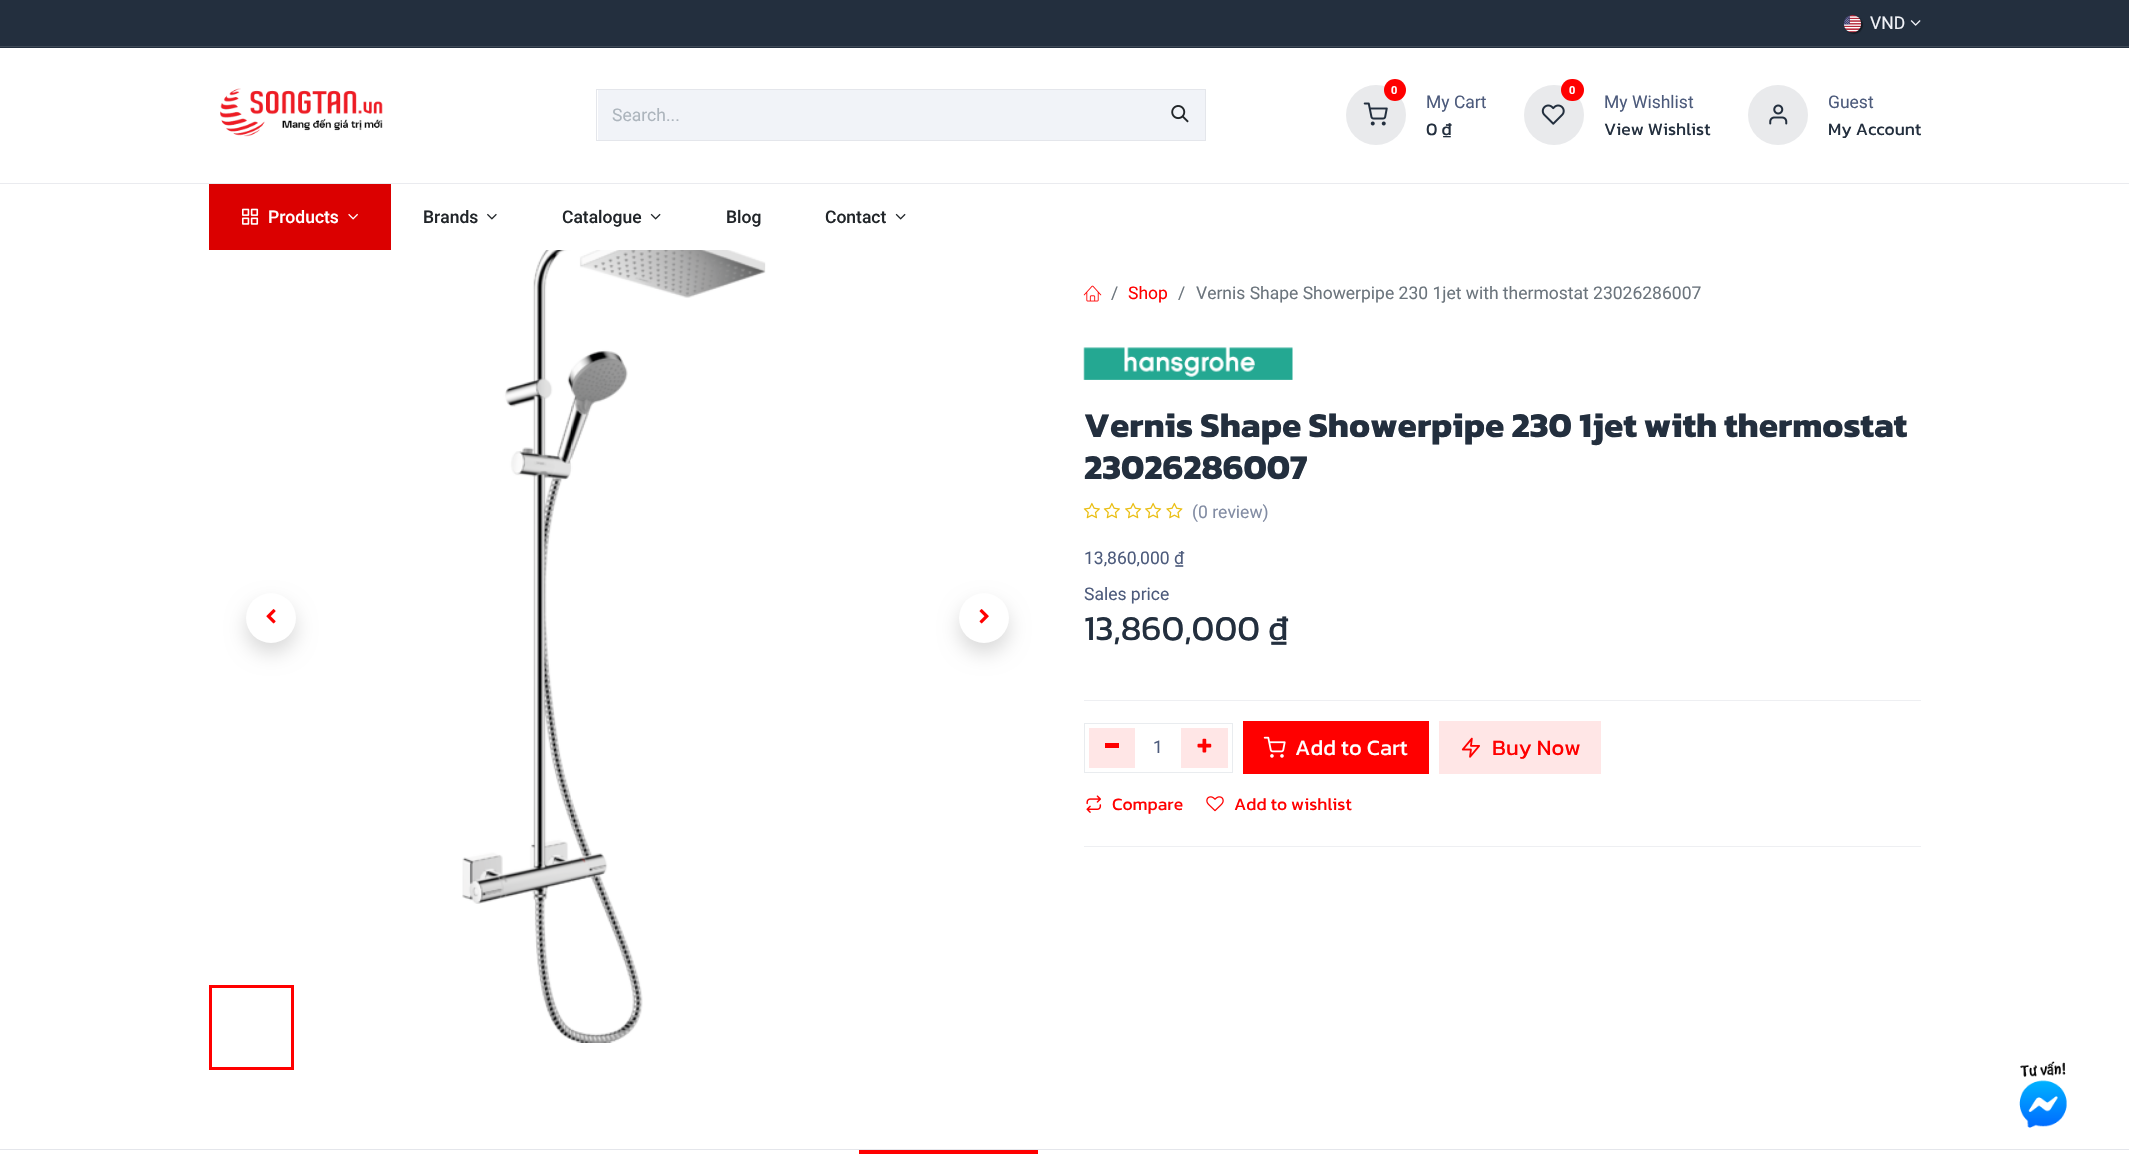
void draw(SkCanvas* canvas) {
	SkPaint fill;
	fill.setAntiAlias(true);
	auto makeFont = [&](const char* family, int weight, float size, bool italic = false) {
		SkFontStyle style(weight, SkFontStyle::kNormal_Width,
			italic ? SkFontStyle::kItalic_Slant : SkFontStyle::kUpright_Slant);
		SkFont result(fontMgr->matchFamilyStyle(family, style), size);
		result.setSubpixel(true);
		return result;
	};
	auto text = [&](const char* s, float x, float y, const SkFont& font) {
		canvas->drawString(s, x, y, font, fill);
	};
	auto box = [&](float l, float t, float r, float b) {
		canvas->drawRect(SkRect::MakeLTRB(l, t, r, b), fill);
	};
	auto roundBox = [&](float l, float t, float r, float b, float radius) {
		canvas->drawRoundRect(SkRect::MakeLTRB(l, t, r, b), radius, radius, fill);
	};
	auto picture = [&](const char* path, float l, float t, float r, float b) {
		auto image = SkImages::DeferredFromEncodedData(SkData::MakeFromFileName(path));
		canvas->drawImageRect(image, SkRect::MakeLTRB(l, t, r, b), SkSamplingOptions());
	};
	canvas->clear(0xFFFFFFFF);
	fill.setColor(0xFF232F3E);
	box(0, 0, 2129, 48);
	fill.setColor(0xFF3D4855);
	box(0, 46, 2129, 47);
	fill.setColor(0x6E000000);
	fill.setMaskFilter(SkMaskFilter::MakeBlur(kNormal_SkBlurStyle, 0.5f));
	canvas->drawRoundRect(SkRect::MakeLTRB(1845, 16, 1863, 34), 9, 9, fill);
	fill.setMaskFilter(nullptr);
	picture("image0.png", 1843, 15, 1862, 33);
	picture("image1.png", 1910, 20, 1921, 26);
	fill.setColor(0xFFEAEBEF);
	box(0, 183, 2129, 184);
	picture("image2.png", 220, 88, 383, 137);
	fill.setStyle(SkPaint::kStroke_Style);
	fill.setStrokeWidth(1);
	fill.setColor(0xFFE4E6EB);
	canvas->drawRect(SkRect::MakeLTRB(596.5f, 89.5f, 1205.5f, 140.5f), fill);
	fill.setStyle(SkPaint::kFill_Style);
	fill.setColor(0xFFF1F3F8);
	box(598, 90, 1205, 140);
	picture("image3.png", 1171, 105, 1189, 123);
	fill.setColor(0xFFE9EAEC);
	canvas->drawCircle(1376, 115, 30, fill);
	picture("image4.png", 1363, 102, 1388, 126);
	fill.setColor(0xFFFF0000);
	canvas->drawCircle(1395, 90, 11, fill);
	fill.setColor(0xFFE9EAEC);
	canvas->drawCircle(1554, 115, 30, fill);
	picture("image5.png", 1541, 104, 1565, 125);
	fill.setColor(0xFFFF0000);
	roundBox(1561, 79, 1584, 101, 11);
	fill.setColor(0xFFE9EAEC);
	canvas->drawCircle(1778, 115, 30, fill);
	picture("image6.png", 1769, 104, 1788, 125);
	fill.setColor(0xFFDB0000);
	box(209, 184, 391, 250);
	picture("image7.png", 242, 208, 259, 225);
	picture("image8.png", 348, 213, 358, 220);
	picture("image9.png", 487, 213, 497, 220);
	picture("image10.png", 650, 213, 661, 220);
	picture("image10.png", 895, 213, 906, 220);
	fill.setColor(0x26000000);
	fill.setMaskFilter(SkMaskFilter::MakeBlur(kNormal_SkBlurStyle, 10));
	canvas->drawRoundRect(SkRect::MakeLTRB(246, 603, 296, 653), 25, 25, fill);
	fill.setMaskFilter(nullptr);
	fill.setColor(0xFFFFFFFF);
	canvas->drawCircle(271, 618, 25, fill);
	picture("image11.png", 266, 609, 276, 624);
	picture("image12.png", 462, 250, 766, 1043);
	fill.setColor(0x26000000);
	fill.setMaskFilter(SkMaskFilter::MakeBlur(kNormal_SkBlurStyle, 10));
	canvas->drawRoundRect(SkRect::MakeLTRB(959, 603, 1009, 653), 25, 25, fill);
	fill.setMaskFilter(nullptr);
	fill.setColor(0xFFFFFFFF);
	canvas->drawCircle(984, 618, 25, fill);
	picture("image13.png", 979, 609, 989, 624);
	fill.setStyle(SkPaint::kStroke_Style);
	fill.setStrokeWidth(3);
	fill.setColor(0xFFFF0000);
	canvas->drawRect(SkRect::MakeLTRB(210.5f, 986.5f, 292.5f, 1068.5f), fill);
	picture("image14.png", 1083, 285, 1102, 302);
	picture("image15.png", 1083, 347, 1293, 380);
	picture("image16.png", 1083, 502, 1100, 519);
	picture("image16.png", 1103, 502, 1120, 519);
	picture("image17.png", 1125, 502, 1142, 519);
	picture("image17.png", 1145, 502, 1162, 519);
	picture("image18.png", 1166, 502, 1183, 519);
	fill.setStyle(SkPaint::kFill_Style);
	fill.setColor(0xFFEEEFF2);
	box(1084, 700, 1921, 701);
	fill.setStyle(SkPaint::kStroke_Style);
	fill.setStrokeWidth(1);
	fill.setColor(0xFFE9ECEF);
	canvas->drawRect(SkRect::MakeLTRB(1084.5f, 723.5f, 1232.5f, 772.5f), fill);
	fill.setStyle(SkPaint::kFill_Style);
	fill.setColor(0xFFFFE6E6);
	box(1089, 728, 1135, 768);
	fill.setColor(0xFFFF0000);
	box(1105, 743, 1119, 748);
	fill.setColor(0xFFFFE6E6);
	box(1181, 728, 1228, 768);
	picture("image19.png", 1197, 738, 1212, 753);
	fill.setColor(0xFFFF0000);
	box(1243, 721, 1429, 774);
	picture("image20.png", 1263, 736, 1286, 758);
	fill.setColor(0xFFFFE6E6);
	box(1439, 721, 1601, 774);
	picture("image21.png", 1461, 737, 1480, 758);
	picture("image22.png", 1086, 795, 1102, 813);
	picture("image23.png", 1206, 796, 1224, 812);
	fill.setColor(0xFFEEEFF2);
	box(1084, 846, 1921, 847);
	fill.setColor(0xFFE4E6EB);
	box(0, 1149, 2129, 1150);
	fill.setColor(0xFFFF0000);
	box(859, 1150, 1038, 1154);
	picture("image24.png", 2019, 1061, 2067, 1128);
	auto font1 = makeFont("Roboto", 400, 17.5f);
	fill.setColor(0xFFF1F3F8);
	text("VND", 1870, 29, font1);
	fill.setColor(0xFFADB5BD);
	text("Search...", 612, 121, font1);
	auto font2 = makeFont("Roboto", 700, 11);
	fill.setColor(0xFFFFFFFF);
	text("0", 1391, 94, font2);
	fill.setColor(0xFF4D5B7C);
	text("My Cart", 1426, 108, font1);
	auto font3 = makeFont("Kanit", 400, 17.5f);
	fill.setColor(0xFF232F3E);
	text("0 ₫", 1426, 135, font3);
	fill.setColor(0xFFFFFFFF);
	text("0", 1569, 94, font2);
	fill.setColor(0xFF4D5B7C);
	text("My Wishlist", 1604, 108, font1);
	fill.setColor(0xFF232F3E);
	text("View Wishlist", 1604, 135, font3);
	fill.setColor(0xFF4D5B7C);
	text("Guest", 1828, 108, font1);
	fill.setColor(0xFF232F3E);
	text("My Account", 1828, 135, font3);
	auto font4 = makeFont("Roboto", 500, 17.5f);
	fill.setColor(0xFFFFFFFF);
	text("Products", 268, 223, font4);
	fill.setColor(0xFF212529);
	text("Brands", 423, 223, font4);
	text("Catalogue", 562, 223, font4);
	text("Blog", 726, 223, font4);
	text("Contact", 825, 223, font4);
	fill.setColor(0xFF6C757D);
	text("/", 1111, 299, font1);
	fill.setColor(0xFFFF0000);
	text("Shop", 1128, 299, font1);
	fill.setColor(0xFF6C757D);
	text("/", 1178, 299, font1);
	text("Vernis Shape Showerpipe 230 1jet with thermostat 23026286007", 1196, 299, font1);
	auto font5 = makeFont("Kanit", 700, 35);
	fill.setColor(0xFF232F3E);
	text("Vernis Shape Showerpipe 230 1jet with thermostat", 1084, 437, font5);
	text("23026286007", 1084, 479, font5);
	fill.setColor(0xFF828CA3);
	text("(0 review)", 1192, 518, font1);
	fill.setColor(0xFF4D5B7C);
	text("13,860,000 ₫", 1084, 564, font1);
	text("Sales price", 1084, 600, font1);
	auto font6 = makeFont("Kanit", 400, 35);
	fill.setColor(0xFF232F3E);
	text("13,860,000 ₫", 1084, 640, font6);
	fill.setColor(0xFF4D5B7C);
	text("1", 1153, 753, font1);
	auto font7 = makeFont("Kanit", 400, 22);
	fill.setColor(0xFFFFFFFF);
	text("Add to Cart", 1295, 755, font7);
	fill.setColor(0xFFFF0000);
	text("Buy Now", 1492, 755, font7);
	text("Compare", 1112, 810, font3);
	text("Add to wishlist", 1234, 810, font3);
}
